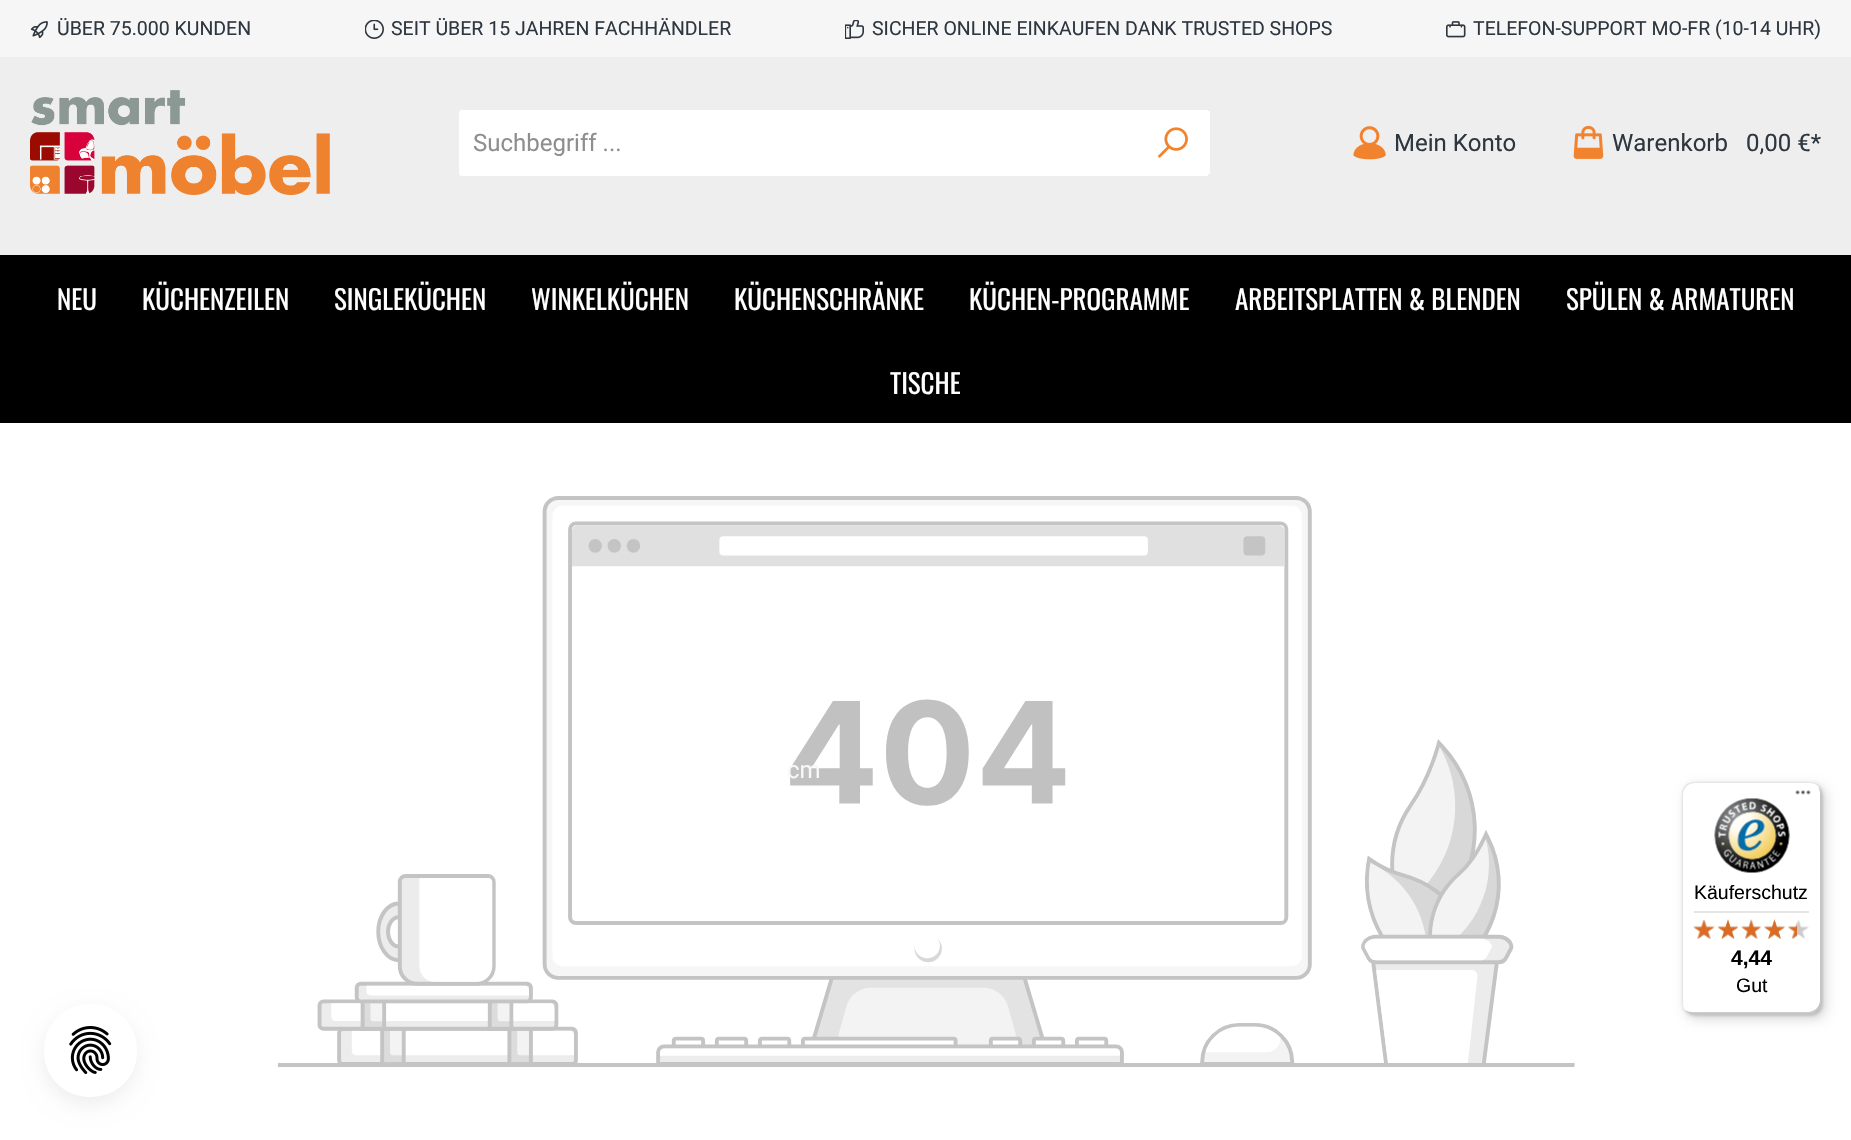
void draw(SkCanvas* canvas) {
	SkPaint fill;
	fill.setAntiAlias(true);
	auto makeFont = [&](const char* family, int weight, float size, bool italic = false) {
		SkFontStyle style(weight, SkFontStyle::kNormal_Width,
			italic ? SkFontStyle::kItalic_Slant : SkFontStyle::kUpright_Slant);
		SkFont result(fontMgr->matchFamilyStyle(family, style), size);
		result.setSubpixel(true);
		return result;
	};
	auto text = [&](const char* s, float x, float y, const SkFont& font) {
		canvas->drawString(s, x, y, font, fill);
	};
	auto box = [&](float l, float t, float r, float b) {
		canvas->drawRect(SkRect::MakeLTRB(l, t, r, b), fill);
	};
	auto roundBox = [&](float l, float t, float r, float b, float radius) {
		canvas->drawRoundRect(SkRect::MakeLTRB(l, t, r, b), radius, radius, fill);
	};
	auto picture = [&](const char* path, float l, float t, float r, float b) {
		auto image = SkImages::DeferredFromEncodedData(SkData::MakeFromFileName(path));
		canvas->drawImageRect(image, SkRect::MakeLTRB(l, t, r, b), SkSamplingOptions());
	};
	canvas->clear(0xFFFFFFFF);
	fill.setColor(0xFFF6F6F6);
	box(0, 0, 1851, 57);
	fill.setColor(0xFFEEEEEE);
	box(0, 57, 1851, 255);
	picture("image0.png", 30, 21, 48, 39);
	picture("image1.png", 365, 20, 384, 39);
	picture("image2.png", 845, 20, 864, 39);
	picture("image3.png", 1446, 21, 1466, 38);
	picture("image4.png", 30, 90, 330, 195);
	fill.setColor(0xFFFFFFFF);
	canvas->drawPath(SkPathBuilder().moveTo(462, 111).lineTo(1139, 111).lineTo(1139, 175).lineTo(462, 175).cubicTo(461, 175, 460, 174, 460, 173).lineTo(460, 113).cubicTo(460, 112, 461, 111, 462, 111).close().detach(), fill);
	fill.setStyle(SkPaint::kStroke_Style);
	fill.setStrokeWidth(2);
	canvas->drawPath(SkPathBuilder().moveTo(462, 111).lineTo(1139, 111).lineTo(1139, 175).lineTo(462, 175).cubicTo(461, 175, 460, 174, 460, 173).lineTo(460, 113).cubicTo(460, 112, 461, 111, 462, 111).close().detach(), fill);
	fill.setStyle(SkPaint::kFill_Style);
	canvas->drawPath(SkPathBuilder().moveTo(1139, 110).lineTo(1206, 110).cubicTo(1207.5f, 110, 1209, 111.5f, 1209, 113).lineTo(1209, 173).cubicTo(1209, 174.5f, 1207.5f, 176, 1206, 176).lineTo(1139, 176).close().detach(), fill);
	box(1207, 110, 1208, 111);
	box(1208, 111, 1210, 174);
	box(1207, 175, 1208, 176);
	picture("image5.png", 1158, 127, 1188, 158);
	picture("image6.png", 1353, 126, 1386, 160);
	picture("image7.png", 1573, 126, 1604, 159);
	fill.setColor(0xFF000000);
	box(0, 255, 1851, 423);
	picture("image8.png", 277, 496, 1575, 1067);
	fill.setColor(0x26000000);
	fill.setMaskFilter(SkMaskFilter::MakeBlur(kNormal_SkBlurStyle, 6));
	canvas->drawRoundRect(SkRect::MakeLTRB(1686, 786, 1826, 1019), 12, 12, fill);
	fill.setMaskFilter(nullptr);
	fill.setMaskFilter(SkMaskFilter::MakeBlur(kNormal_SkBlurStyle, 1.5f));
	canvas->drawRoundRect(SkRect::MakeLTRB(1683, 783, 1823, 1016), 12, 12, fill);
	fill.setMaskFilter(nullptr);
	fill.setColor(0xFFFFFFFF);
	roundBox(1682, 782, 1821, 1014, 12);
	fill.setColor(0xFFE5E5E5);
	canvas->drawPath(SkPathBuilder().moveTo(1695, 783).lineTo(1810, 783).cubicTo(1813, 783, 1815, 784, 1817, 785).cubicTo(1815, 783, 1812, 782, 1809, 782).lineTo(1694, 782).cubicTo(1687, 782, 1682, 787, 1682, 794).lineTo(1682, 1002).cubicTo(1682, 1004, 1683, 1007, 1684, 1009).lineTo(1683, 1004).lineTo(1683, 795).cubicTo(1683, 788, 1688, 783, 1695, 783).close().detach(), fill);
	fill.setColor(0x33000000);
	canvas->drawPath(SkPathBuilder().moveTo(1685, 1010).cubicTo(1687, 1012, 1690, 1014, 1694, 1014).lineTo(1809, 1014).cubicTo(1816, 1014, 1821, 1009, 1821, 1002).lineTo(1821, 794).cubicTo(1821, 792, 1820, 789, 1819, 788).lineTo(1820, 792).lineTo(1820, 1000).cubicTo(1820, 1007, 1814, 1012, 1808, 1012).lineTo(1692, 1012).cubicTo(1689, 1012, 1687, 1011, 1685, 1010).close().detach(), fill);
	fill.setColor(0x33323232);
	canvas->drawPath(SkPathBuilder().moveTo(1686, 1011).cubicTo(1688, 1013, 1691, 1014, 1694, 1014).lineTo(1809, 1014).cubicTo(1816, 1014, 1821, 1009, 1821, 1002).lineTo(1821, 794).cubicTo(1821, 791, 1820, 788, 1818, 786).cubicTo(1819, 788, 1820, 790, 1820, 793).lineTo(1820, 1001).cubicTo(1820, 1008, 1815, 1013, 1808, 1013).lineTo(1693, 1013).cubicTo(1690, 1013, 1688, 1012, 1686, 1011).close().detach(), fill);
	fill.setColor(0x4DFFFFFF);
	canvas->drawPath(SkPathBuilder().moveTo(1686, 1011).cubicTo(1688, 1013, 1691, 1014, 1694, 1014).lineTo(1809, 1014).cubicTo(1816, 1014, 1821, 1009, 1821, 1002).lineTo(1821, 794).cubicTo(1821, 791, 1820, 788, 1818, 786).cubicTo(1819, 788, 1820, 790, 1820, 793).lineTo(1820, 1001).cubicTo(1820, 1008, 1815, 1013, 1808, 1013).lineTo(1693, 1013).cubicTo(1690, 1013, 1688, 1012, 1686, 1011).close().detach(), fill);
	picture("image9.png", 1795, 790, 1811, 795);
	picture("image10.png", 1714, 798, 1790, 873);
	fill.setColor(0xFFE5E5E5);
	box(1694, 911, 1809, 913);
	picture("image16.png", 1694, 920, 1714, 939);
	picture("image11.png", 1693, 919, 1715, 939);
	picture("image17.png", 1718, 919, 1738, 939);
	picture("image12.png", 1718, 919, 1738, 939);
	picture("image18.png", 1741, 919, 1761, 939);
	picture("image13.png", 1741, 919, 1761, 939);
	picture("image19.png", 1764, 919, 1785, 939);
	picture("image14.png", 1764, 919, 1785, 939);
	picture("image20.png", 1788, 920, 1809, 939);
	picture("image15.png", 1788, 922, 1797, 939);
	fill.setColor(0x14000000);
	fill.setMaskFilter(SkMaskFilter::MakeBlur(kNormal_SkBlurStyle, 11));
	canvas->drawRoundRect(SkRect::MakeLTRB(45, 1013, 135, 1103), 45, 45, fill);
	fill.setMaskFilter(nullptr);
	fill.setColor(0xFFFFFFFF);
	roundBox(44, 1004, 137, 1097, 45);
	picture("image21.png", 69, 1026, 112, 1074);
	auto font1 = makeFont("Roboto", 400, 19.5f);
	fill.setColor(0xFF2E3740);
	text("ÜBER 75.000 KUNDEN", 57, 35, font1);
	text("SEIT ÜBER 15 JAHREN FACHHÄNDLER", 391, 35, font1);
	text("SICHER ONLINE EINKAUFEN DANK TRUSTED SHOPS", 872, 35, font1);
	text("TELEFON-SUPPORT MO-FR (10-14 UHR)", 1473, 35, font1);
	auto font2 = makeFont("Roboto", 400, 24);
	fill.setColor(0xFF8E8E8E);
	text("Suchbegriff ...", 473, 151, font2);
	fill.setColor(0xFF2E3740);
	text("Mein Konto", 1394, 151, font2);
	text("Warenkorb", 1612, 151, font2);
	text("0,00 €*", 1746, 151, font2);
	auto font3 = makeFont("Oswald", 400, 27);
	fill.setColor(0xFFFFFFFF);
	text("NEU", 57, 310, font3);
	text("KÜCHENZEILEN", 142, 310, font3);
	text("SINGLEKÜCHEN", 334, 310, font3);
	text("WINKELKÜCHEN", 531, 310, font3);
	text("KÜCHENSCHRÄNKE", 734, 310, font3);
	text("KÜCHEN-PROGRAMME", 969, 310, font3);
	text("ARBEITSPLATTEN & BLENDEN", 1235, 310, font3);
	text("SPÜLEN & ARMATUREN", 1566, 310, font3);
	text("TISCHE", 890, 394, font3);
	fill.setColor(0xFFF8F8F8);
	text("cm", 787, 778, font2);
	auto font4 = makeFont("Liberation Sans", 400, 19.5f);
	fill.setColor(0xFF000000);
	text("Käuferschutz", 1694, 899, font4);
	auto font5 = makeFont("Liberation Sans", 700, 21);
	text("4,44", 1731, 965, font5);
	text("Gut", 1736, 992, font4);
}
